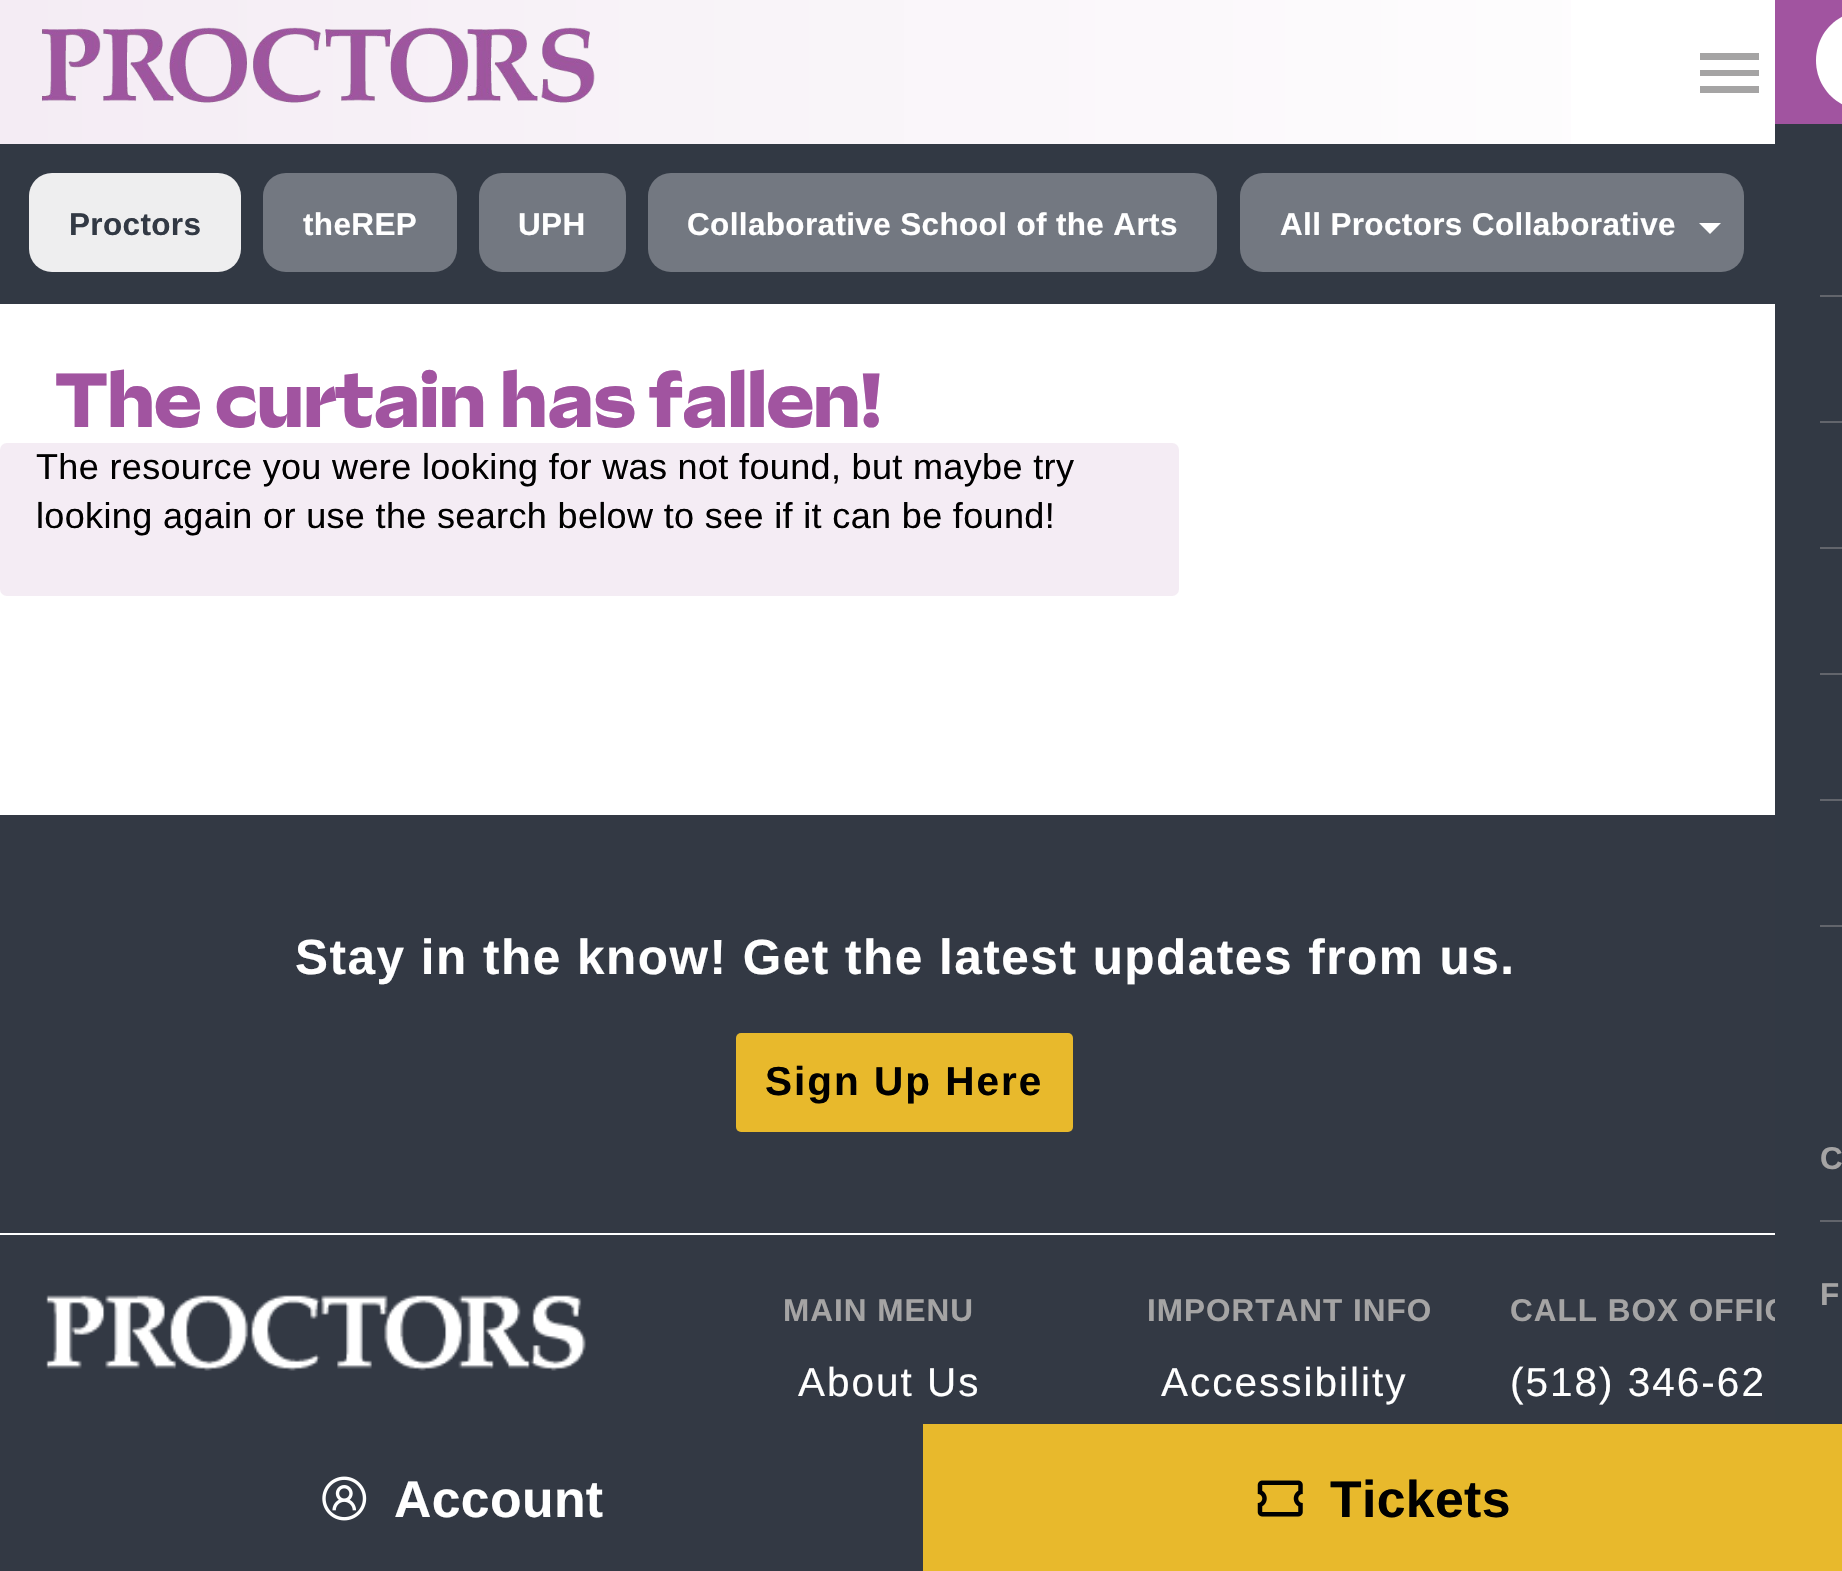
void draw(SkCanvas* canvas) {
	SkPaint fill;
	fill.setAntiAlias(true);
	auto makeFont = [&](const char* family, int weight, float size, bool italic = false) {
		SkFontStyle style(weight, SkFontStyle::kNormal_Width,
			italic ? SkFontStyle::kItalic_Slant : SkFontStyle::kUpright_Slant);
		SkFont result(fontMgr->matchFamilyStyle(family, style), size);
		result.setSubpixel(true);
		return result;
	};
	auto spacedText = [&](const char* s, float x, float y, const SkFont& font, const SkPaint& ink, float letter, float word) {
		std::vector<SkGlyphID> glyphs(font.countText(s, strlen(s), SkTextEncoding::kUTF8));
		std::vector<float> xs(glyphs.size());
		font.textToGlyphs(s, strlen(s), SkTextEncoding::kUTF8, glyphs);
		font.getXPos(glyphs, xs, x);
		float extra = 0;
		for (size_t i = 0; i < glyphs.size(); i++) {
			xs[i] += extra;
			extra += letter + word * (glyphs[i] == font.unicharToGlyph(' '));
		}
		canvas->drawTextBlob(SkTextBlob::MakeFromPosHGlyphs(glyphs, xs, y, font), 0, 0, ink);
	};
	auto box = [&](float l, float t, float r, float b) {
		canvas->drawRect(SkRect::MakeLTRB(l, t, r, b), fill);
	};
	auto roundBox = [&](float l, float t, float r, float b, float radius) {
		canvas->drawRoundRect(SkRect::MakeLTRB(l, t, r, b), radius, radius, fill);
	};
	auto picture = [&](const char* path, float l, float t, float r, float b) {
		auto image = SkImages::DeferredFromEncodedData(SkData::MakeFromFileName(path));
		canvas->drawImageRect(image, SkRect::MakeLTRB(l, t, r, b), SkSamplingOptions());
	};
	canvas->clear(0xFFFFFFFF);
	{
		const SkColor colors[] = {0xFFF4ECF4, 0xFFFFFFFF};
		const float stops[] = {0, 1};
		const SkPoint ends[] = {{0, 152}, {1809, 152}};
		fill.setShader(SkGradientShader::MakeLinear(ends, colors, stops, 2, SkTileMode::kClamp));
		fill.setAlpha(255);
	}
	box(0, 0, 1571, 144);
	fill.setShader(nullptr);
	fill.setColor(0xFF323944);
	box(0, 144, 1775, 304);
	fill.setColor(0xFFEEEEEF);
	roundBox(29, 173, 241, 272, 23);
	fill.setColor(0xFF737881);
	roundBox(263, 173, 457, 272, 23);
	roundBox(479, 173, 626, 272, 23);
	roundBox(648, 173, 1217, 272, 23);
	roundBox(1240, 173, 1744, 272, 23);
	fill.setColor(0xFFFFFFFF);
	canvas->drawPath(SkPathBuilder().moveTo(1699, 223).lineTo(1721, 223).lineTo(1710, 234).close().detach(), fill);
	picture("image0.png", 42, 27, 595, 103);
	fill.setColor(0xFFA5A4A4);
	canvas->drawPath(SkPathBuilder().moveTo(1700, 53).lineTo(1759, 53).lineTo(1759, 60).lineTo(1700, 60).lineTo(1700, 53).moveTo(1700, 70).lineTo(1759, 70).lineTo(1759, 76).lineTo(1700, 76).lineTo(1700, 70).moveTo(1700, 86).lineTo(1759, 86).lineTo(1759, 93).lineTo(1700, 93).close().detach(), fill);
	fill.setColor(0xFFA154A0);
	box(1775, 0, 1842, 124);
	fill.setColor(0xFFFFFFFF);
	canvas->drawPath(SkPathBuilder().moveTo(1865.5f, 11).lineTo(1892, 11).lineTo(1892, 110).lineTo(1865.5f, 110).cubicTo(1838, 110, 1816, 88, 1816, 60.5f).cubicTo(1816, 33, 1838, 11, 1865.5f, 11).close().detach(), fill);
	fill.setColor(0xFFE8B92C);
	box(923, 1424, 1842, 1571);
	fill.setColor(0xFF333944);
	box(0, 1424, 923, 1571);
	picture("image1.png", 322, 1476, 367, 1521);
	picture("image2.png", 1257, 1480, 1303, 1517);
	fill.setColor(0xFFF4ECF4);
	roundBox(0, 443, 1179, 596, 7);
	fill.setColor(0xFF333944);
	box(0, 815, 1775, 1424);
	fill.setColor(0xFFFFFFFF);
	box(0, 1233, 1775, 1235);
	fill.setColor(0xFFE8B92C);
	roundBox(736, 1033, 1073, 1132, 5);
	picture("image3.png", 46, 1295, 586, 1371);
	auto font1 = makeFont("Liberation Sans", 700, 31.5f);
	fill.setColor(0xFF323944);
	spacedText("Proctors", 69, 235, font1, fill, 0.35f, 0);
	fill.setColor(0xFFFFFFFF);
	spacedText("theREP", 303, 235, font1, fill, 0.35f, 0);
	spacedText("UPH", 518, 235, font1, fill, 0.35f, 0);
	spacedText("Collaborative School of the Arts", 687, 235, font1, fill, 0.35f, 0);
	spacedText("All Proctors Collaborative", 1280, 235, font1, fill, 0.35f, 0);
	auto font2 = makeFont("Liberation Sans", 700, 51.75f);
	spacedText("Account", 394, 1517, font2, fill, 0.35f, 0);
	fill.setColor(0xFF000000);
	spacedText("Tickets", 1330, 1517, font2, fill, 0.35f, 0);
	auto font3 = makeFont("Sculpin", 900, 76.5f);
	fill.setColor(0xFFA154A0);
	spacedText("The curtain has fallen!", 54, 427, font3, fill, -2.25f, 0);
	auto font4 = makeFont("Liberation Sans", 400, 36);
	fill.setColor(0xFF000000);
	spacedText("The resource you were looking for was not found, but maybe try", 36, 479, font4, fill, 0.35f, 0);
	spacedText("looking again or use the search below to see if it can be found!", 36, 528, font4, fill, 0.35f, 0);
	auto font5 = makeFont("Liberation Sans", 700, 49.5f);
	fill.setColor(0xFFFFFFFF);
	spacedText("Stay in the know! Get the latest updates from us.", 295, 974, font5, fill, 1.5f, 0);
	auto font6 = makeFont("Liberation Sans", 700, 40.5f);
	fill.setColor(0xFF000000);
	spacedText("Sign Up Here", 765, 1095, font6, fill, 2, 0);
	fill.setColor(0xFFA5A4A4);
	spacedText("MAIN MENU", 783, 1321, font1, fill, 1, 0);
	auto font7 = makeFont("Liberation Sans", 400, 40.5f);
	fill.setColor(0xFFFFFFFF);
	spacedText("About Us", 798, 1396, font7, fill, 2, 0);
	fill.setColor(0xFFA5A4A4);
	spacedText("IMPORTANT INFO", 1147, 1321, font1, fill, 1, 0);
	fill.setColor(0xFFFFFFFF);
	spacedText("Accessibility", 1161, 1396, font7, fill, 2, 0);
	fill.setColor(0xFFA5A4A4);
	spacedText("CALL BOX OFFIC", 1510, 1321, font1, fill, 1, 0);
	fill.setColor(0xFF323944);
	box(1775, 124, 1842, 1424);
	fill.setColor(0xFF62656C);
	box(1820, 925, 1842, 927);
	box(1820, 799, 1842, 801);
	box(1820, 673, 1842, 675);
	box(1820, 547, 1842, 549);
	box(1820, 421, 1842, 423);
	box(1820, 295, 1842, 297);
	fill.setColor(0xFFA5A4A4);
	spacedText("F", 1820, 1305, font1, fill, 1, 0);
	spacedText("C", 1820, 1169, font1, fill, 1, 0);
	fill.setColor(0xFF62656C);
	box(1820, 1220, 1842, 1222);
	fill.setColor(0xFFFFFFFF);
	spacedText("(518) 346-62", 1510, 1396, font7, fill, 2, 0);
}
